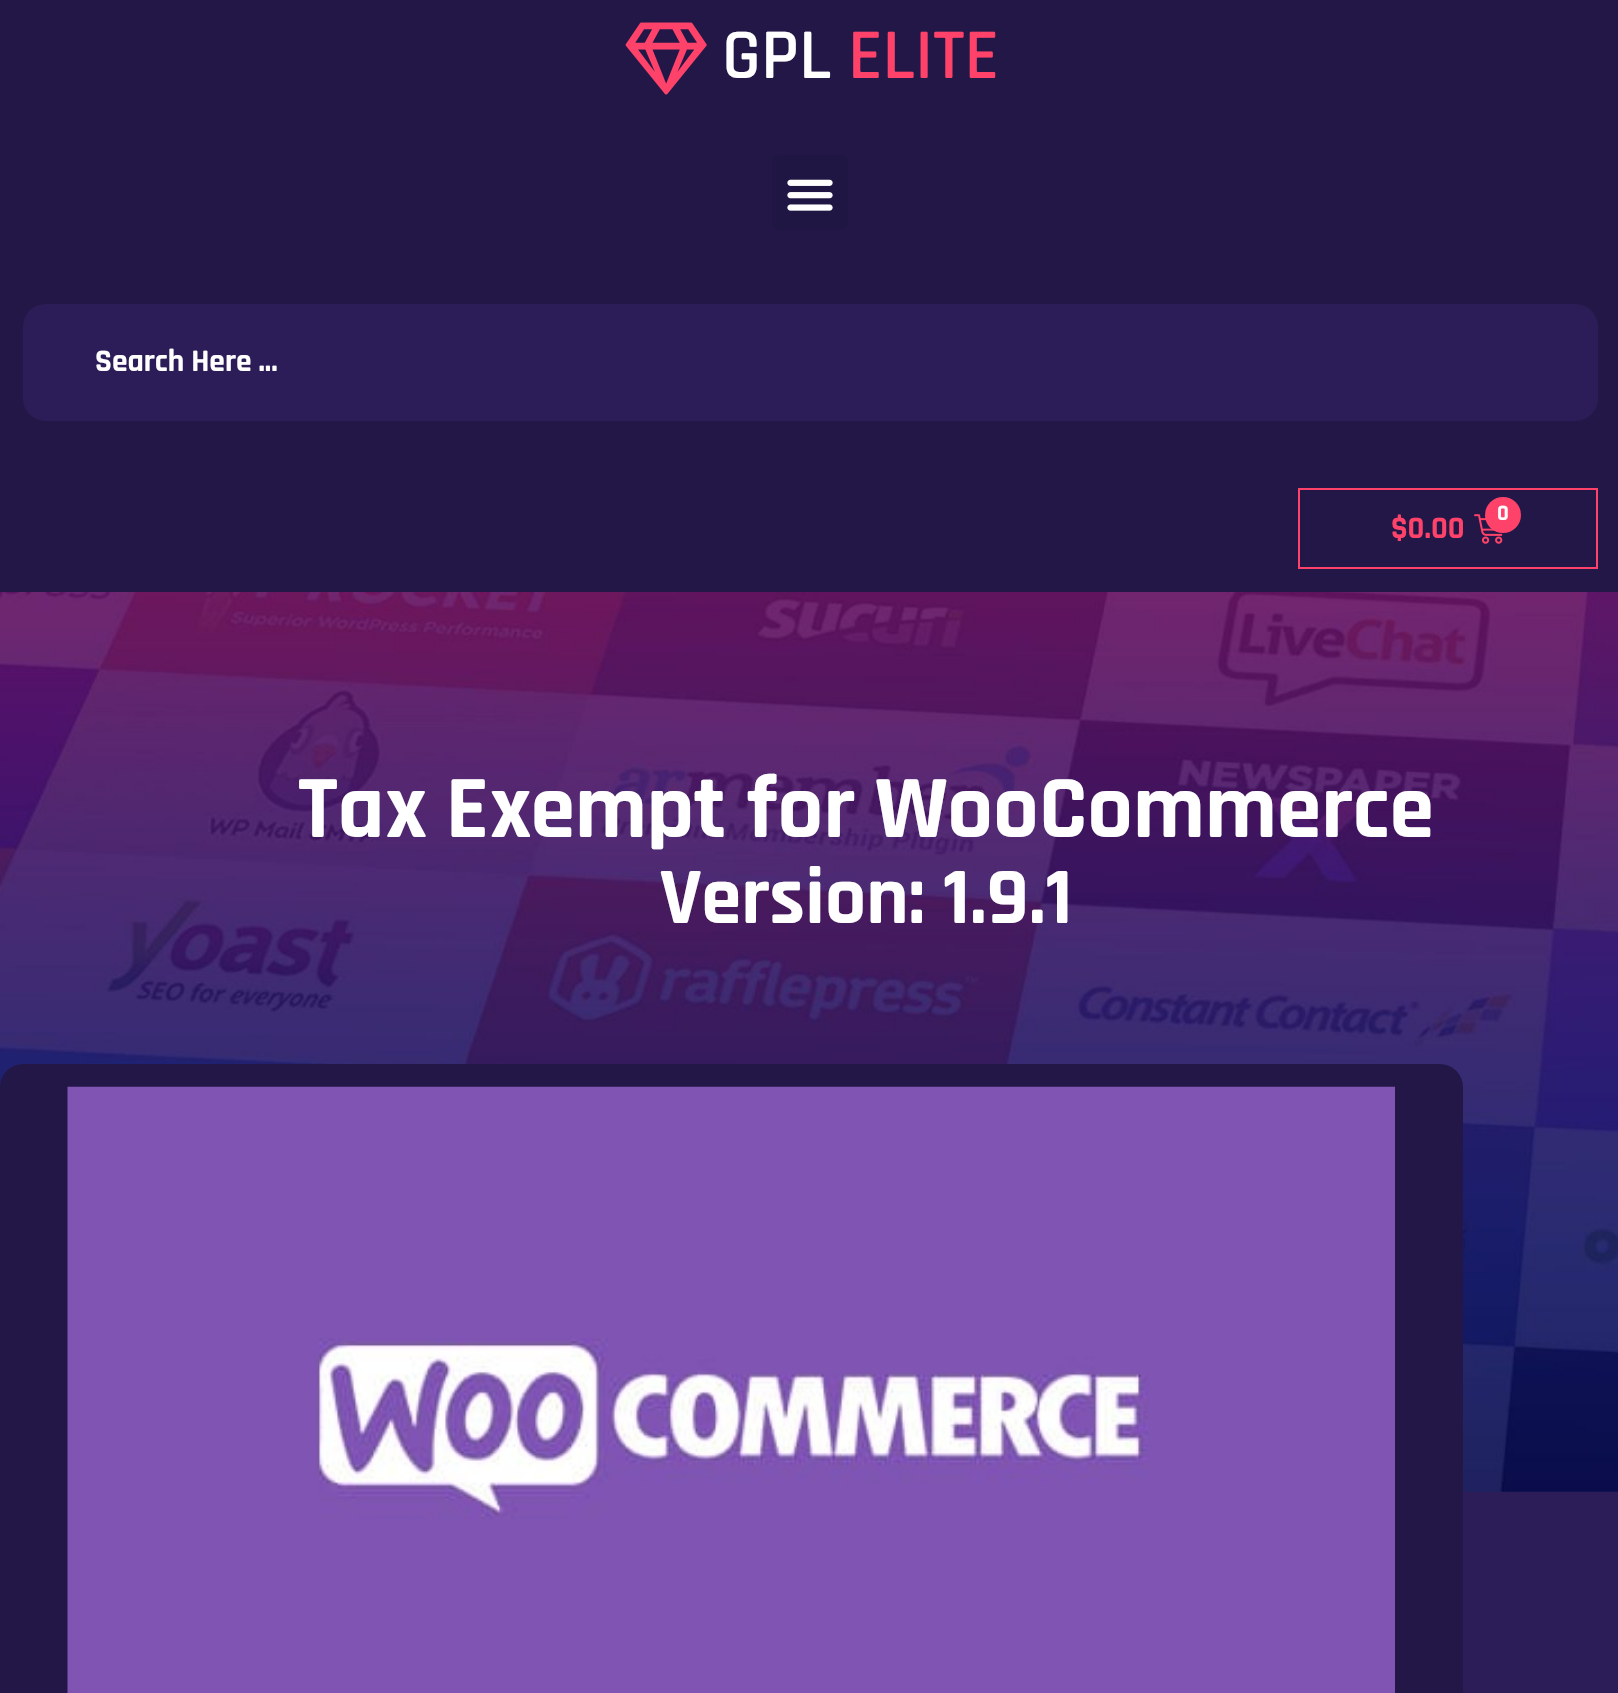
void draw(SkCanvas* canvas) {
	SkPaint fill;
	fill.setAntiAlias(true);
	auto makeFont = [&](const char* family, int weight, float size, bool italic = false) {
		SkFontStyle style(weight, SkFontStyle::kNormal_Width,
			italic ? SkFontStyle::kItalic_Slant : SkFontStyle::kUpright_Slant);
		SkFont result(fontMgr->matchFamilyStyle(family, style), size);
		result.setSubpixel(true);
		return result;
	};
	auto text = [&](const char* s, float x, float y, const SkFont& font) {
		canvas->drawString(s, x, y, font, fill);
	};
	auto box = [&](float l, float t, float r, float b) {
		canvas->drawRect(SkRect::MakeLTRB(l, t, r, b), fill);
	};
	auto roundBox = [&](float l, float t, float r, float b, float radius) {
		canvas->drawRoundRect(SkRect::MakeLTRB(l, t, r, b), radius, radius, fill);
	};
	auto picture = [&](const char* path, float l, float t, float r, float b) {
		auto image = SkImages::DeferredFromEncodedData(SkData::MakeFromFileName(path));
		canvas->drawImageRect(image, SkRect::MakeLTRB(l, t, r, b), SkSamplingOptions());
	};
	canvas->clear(0xFF2C1D58);
	fill.setColor(0xFF221746);
	box(0, 0, 1618, 592);
	picture("image0.png", 625, 22, 707, 95);
	fill.setColor(0xFF201643);
	roundBox(772, 155, 848, 230, 7);
	picture("image1.png", 787, 179, 833, 211);
	fill.setColor(0xFF2C1D58);
	canvas->drawRoundRect(SkRect::MakeLTRB(24, 305, 1597, 420), 22, 22, fill);
	fill.setStyle(SkPaint::kStroke_Style);
	fill.setStrokeWidth(2);
	canvas->drawRoundRect(SkRect::MakeLTRB(24, 305, 1597, 420), 22, 22, fill);
	fill.setColor(0xFFFF426A);
	canvas->drawRect(SkRect::MakeLTRB(1299, 489, 1597, 568), fill);
	picture("image2.png", 1474, 514, 1503, 544);
	fill.setStyle(SkPaint::kFill_Style);
	canvas->drawCircle(1503, 515, 18, fill);
	picture("image3.png", 0, 592, 1618, 1492);
	fill.setColor(0xFF221746);
	roundBox(0, 1064, 1463, 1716, 23);
	picture("image4.png", 67, 1086, 1395, 1693);
	auto font1 = makeFont("Rajdhani", 600, 72);
	fill.setColor(0xFFFFFFFF);
	text("GPL", 722, 78, font1);
	fill.setColor(0xFFFF426A);
	text("ELITE", 848, 78, font1);
	auto font2 = makeFont("Rajdhani", 700, 31.5f);
	fill.setColor(0xFFFFFFFF);
	text("Search Here ...", 95, 371, font2);
	auto font3 = makeFont("Rajdhani", 700, 22);
	text("0", 1497, 520, font3);
	fill.setColor(0xFFFF426A);
	text("$0.00", 1391, 538, font2);
	auto font4 = makeFont("Rajdhani", 700, 90);
	fill.setColor(0xFFFFFFFF);
	text("Tax Exempt for WooCommerce", 298, 837, font4);
	auto font5 = makeFont("Rajdhani", 700, 81);
	text("Version: 1.9.1", 659, 923, font5);
}
